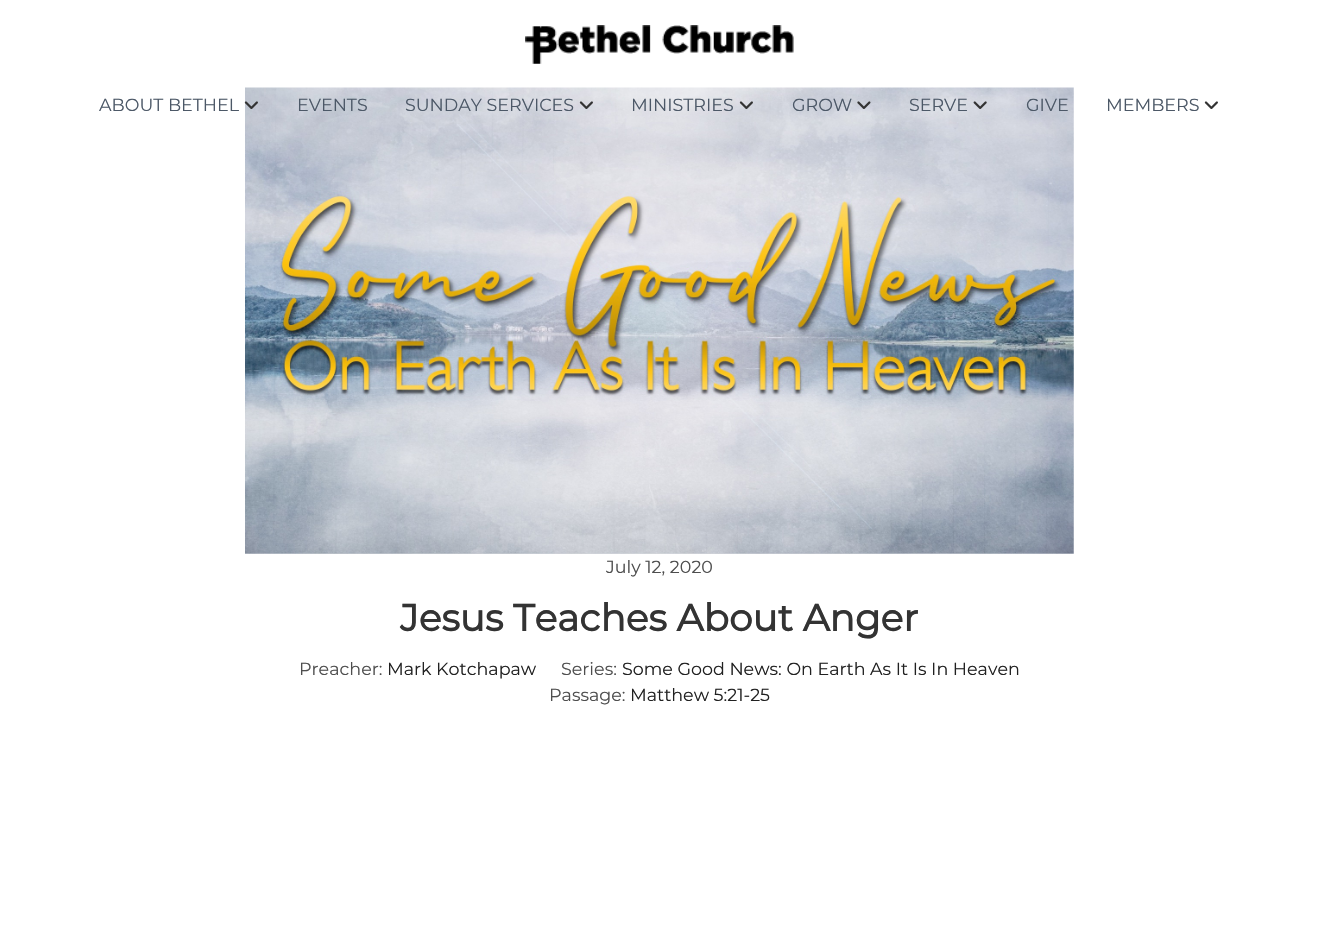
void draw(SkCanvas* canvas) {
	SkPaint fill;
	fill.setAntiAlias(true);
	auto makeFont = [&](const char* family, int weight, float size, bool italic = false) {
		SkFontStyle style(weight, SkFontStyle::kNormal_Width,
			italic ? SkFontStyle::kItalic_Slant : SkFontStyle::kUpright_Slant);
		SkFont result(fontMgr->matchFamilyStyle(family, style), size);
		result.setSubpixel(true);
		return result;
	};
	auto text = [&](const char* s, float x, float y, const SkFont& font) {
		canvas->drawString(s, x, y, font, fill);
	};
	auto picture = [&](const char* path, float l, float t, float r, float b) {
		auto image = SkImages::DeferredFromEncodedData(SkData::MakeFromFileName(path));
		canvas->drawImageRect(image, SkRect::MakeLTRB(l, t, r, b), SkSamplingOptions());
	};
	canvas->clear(0xFFFFFFFF);
	picture("image0.png", 525, 25, 794, 64);
	picture("image7.png", 245, 87, 1074, 554);
	picture("image1.png", 244, 101, 258, 109);
	picture("image2.png", 579, 101, 593, 109);
	picture("image3.png", 739, 101, 753, 109);
	picture("image4.png", 857, 101, 871, 109);
	picture("image5.png", 973, 101, 987, 109);
	picture("image6.png", 1204, 101, 1218, 109);
	auto font1 = makeFont("Montserrat", 400, 17.5f);
	fill.setColor(0xFF4C5867);
	text("ABOUT BETHEL", 99, 111, font1);
	text("EVENTS", 297, 111, font1);
	text("SUNDAY SERVICES", 405, 111, font1);
	text("MINISTRIES", 631, 111, font1);
	text("GROW", 792, 111, font1);
	text("SERVE", 909, 111, font1);
	text("GIVE", 1026, 111, font1);
	text("MEMBERS", 1106, 111, font1);
	fill.setColor(0xFF4E4E4E);
	text("July 12, 2020", 606, 573, font1);
	auto font2 = makeFont("Montserrat", 700, 37.5f);
	fill.setColor(0xFF333333);
	text("Jesus Teaches About Anger", 400, 631, font2);
	fill.setColor(0xFF4E4E4E);
	text("Preacher:", 299, 675, font1);
	fill.setColor(0xFF212121);
	text("Mark Kotchapaw", 387, 675, font1);
	fill.setColor(0xFF4E4E4E);
	text("Series:", 561, 675, font1);
	fill.setColor(0xFF212121);
	text("Some Good News: On Earth As It Is In Heaven", 622, 675, font1);
	fill.setColor(0xFF4E4E4E);
	text("Passage:", 549, 701, font1);
	fill.setColor(0xFF212121);
	text("Matthew 5:21-25", 630, 701, font1);
}
